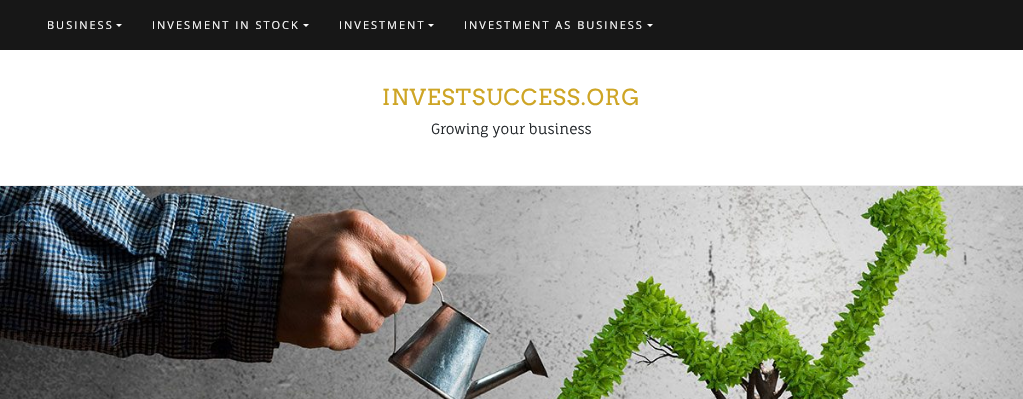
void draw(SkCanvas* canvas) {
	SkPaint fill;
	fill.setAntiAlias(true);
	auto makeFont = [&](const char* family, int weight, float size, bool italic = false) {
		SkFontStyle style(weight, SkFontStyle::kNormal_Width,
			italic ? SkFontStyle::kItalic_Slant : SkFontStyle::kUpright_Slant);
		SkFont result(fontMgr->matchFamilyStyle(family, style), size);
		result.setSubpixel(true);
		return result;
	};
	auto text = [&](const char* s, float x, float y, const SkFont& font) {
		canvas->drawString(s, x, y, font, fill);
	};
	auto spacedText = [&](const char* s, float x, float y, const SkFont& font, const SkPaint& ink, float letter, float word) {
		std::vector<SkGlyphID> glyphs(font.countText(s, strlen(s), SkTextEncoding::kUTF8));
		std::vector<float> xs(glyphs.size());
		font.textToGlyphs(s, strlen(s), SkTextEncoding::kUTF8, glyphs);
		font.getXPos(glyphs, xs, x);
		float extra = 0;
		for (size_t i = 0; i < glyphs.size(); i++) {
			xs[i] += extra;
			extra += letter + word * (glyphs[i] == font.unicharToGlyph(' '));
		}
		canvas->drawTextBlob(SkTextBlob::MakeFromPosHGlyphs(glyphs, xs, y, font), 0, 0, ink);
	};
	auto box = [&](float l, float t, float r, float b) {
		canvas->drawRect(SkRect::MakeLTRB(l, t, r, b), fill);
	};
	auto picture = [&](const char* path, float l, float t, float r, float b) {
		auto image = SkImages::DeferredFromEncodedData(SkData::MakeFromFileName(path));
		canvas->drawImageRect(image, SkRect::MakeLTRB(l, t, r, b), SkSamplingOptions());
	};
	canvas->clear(0xFFFFFFFF);
	fill.setColor(0xFF171717);
	box(0, 0, 1023, 50);
	fill.setColor(0xFFFFFFFF);
	canvas->drawPath(SkPathBuilder().moveTo(116, 24).lineTo(122, 24).lineTo(119, 27).close().detach(), fill);
	canvas->drawPath(SkPathBuilder().moveTo(303, 24).lineTo(309, 24).lineTo(306, 27).close().detach(), fill);
	canvas->drawPath(SkPathBuilder().moveTo(428, 24).lineTo(434, 24).lineTo(431, 27).close().detach(), fill);
	canvas->drawPath(SkPathBuilder().moveTo(647, 24).lineTo(653, 24).lineTo(650, 27).close().detach(), fill);
	fill.setColor(0xFFEEEEEE);
	box(0, 185, 1023, 186);
	picture("image0.png", 0, 186, 1023, 399);
	auto font1 = makeFont("Open Sans", 400, 11);
	fill.setColor(0xFFFFFFFF);
	spacedText("BUSINESS", 47, 29, font1, fill, 2, 0);
	spacedText("INVESMENT IN STOCK", 152, 29, font1, fill, 2, 0);
	spacedText("INVESTMENT", 339, 29, font1, fill, 2, 0);
	spacedText("INVESTMENT AS BUSINESS", 464, 29, font1, fill, 2, 0);
	auto font2 = makeFont("Arvo", 400, 22);
	fill.setColor(0xFFCEA525);
	spacedText("INVESTSUCCESS.ORG", 382, 105, font2, fill, 1, 0);
	auto font3 = makeFont("Fauna One", 400, 14);
	fill.setColor(0xFF212529);
	text("Growing your business", 431, 134, font3);
}
